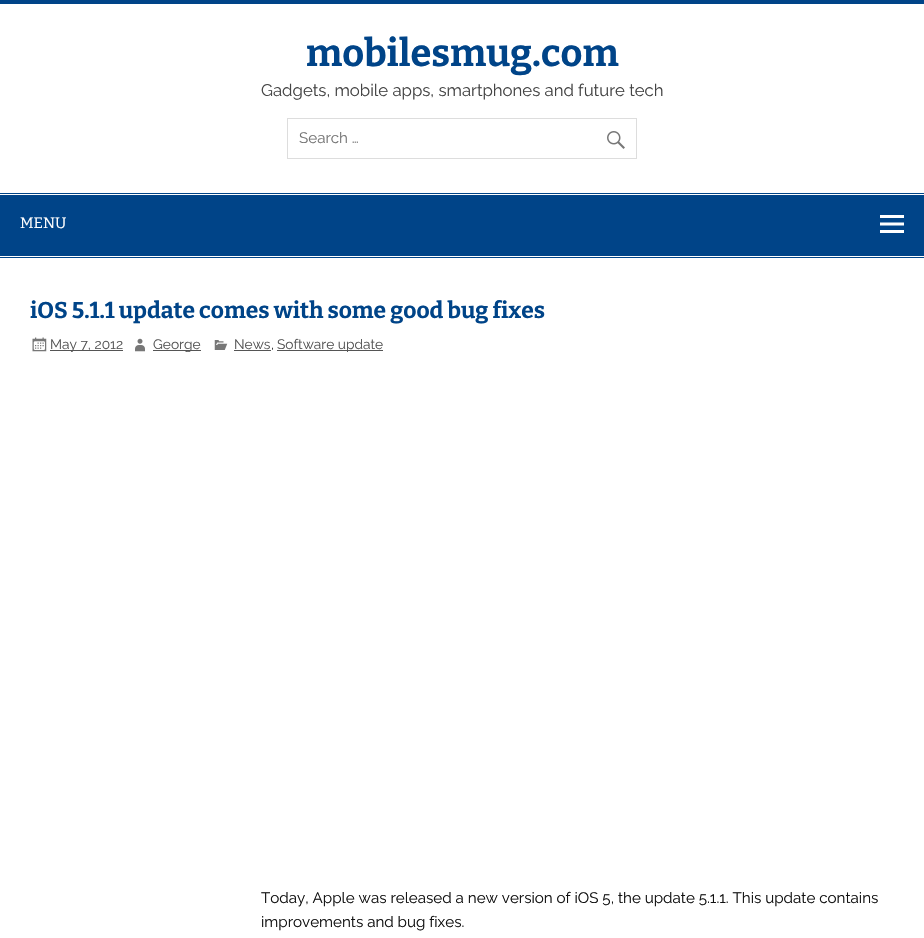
void draw(SkCanvas* canvas) {
	SkPaint fill;
	fill.setAntiAlias(true);
	auto makeFont = [&](const char* family, int weight, float size, bool italic = false) {
		SkFontStyle style(weight, SkFontStyle::kNormal_Width,
			italic ? SkFontStyle::kItalic_Slant : SkFontStyle::kUpright_Slant);
		SkFont result(fontMgr->matchFamilyStyle(family, style), size);
		result.setSubpixel(true);
		return result;
	};
	auto text = [&](const char* s, float x, float y, const SkFont& font) {
		canvas->drawString(s, x, y, font, fill);
	};
	auto box = [&](float l, float t, float r, float b) {
		canvas->drawRect(SkRect::MakeLTRB(l, t, r, b), fill);
	};
	auto picture = [&](const char* path, float l, float t, float r, float b) {
		auto image = SkImages::DeferredFromEncodedData(SkData::MakeFromFileName(path));
		canvas->drawImageRect(image, SkRect::MakeLTRB(l, t, r, b), SkSamplingOptions());
	};
	canvas->clear(0xFFFFFFFF);
	fill.setColor(0xFF004488);
	box(0, 0, 924, 4);
	fill.setStyle(SkPaint::kStroke_Style);
	fill.setStrokeWidth(1);
	fill.setColor(0xFFDDDDDD);
	canvas->drawRect(SkRect::MakeLTRB(287.5f, 118.5f, 636.5f, 158.5f), fill);
	picture("image0.png", 607, 131, 625, 149);
	fill.setStyle(SkPaint::kFill_Style);
	fill.setColor(0xFF004488);
	box(0, 193, 924, 194);
	box(0, 257, 924, 258);
	box(0, 195, 924, 256);
	picture("image1.png", 880, 215, 904, 233);
	picture("image2.png", 32, 337, 47, 352);
	fill.setColor(0xFF555555);
	box(50, 350, 123, 351);
	picture("image3.png", 135, 338, 145, 352);
	box(153, 350, 201, 351);
	picture("image4.png", 214, 340, 228, 350);
	box(234, 350, 271, 351);
	box(277, 350, 383, 351);
	auto font1 = makeFont("Bitter", 700, 38);
	fill.setColor(0xFF004488);
	text("mobilesmug.com", 306, 66, font1);
	auto font2 = makeFont("Raleway", 400, 16.75f);
	fill.setColor(0xFF444444);
	text("Gadgets, mobile apps, smartphones and future tech", 261, 96, font2);
	auto font3 = makeFont("Raleway", 400, 15.2f);
	fill.setColor(0xFF757575);
	text("Search …", 299, 143, font3);
	auto font4 = makeFont("Bitter", 400, 15.2f);
	fill.setColor(0xFFFFFFFF);
	text("MENU", 20, 228, font4);
	auto font5 = makeFont("Bitter", 700, 22.8f);
	fill.setColor(0xFF004488);
	text("iOS 5.1.1 update comes with some good bug fixes", 30, 318, font5);
	auto font6 = makeFont("Raleway", 400, 13.75f);
	fill.setColor(0xFF555555);
	text("May 7, 2012", 50, 349, font6);
	text("George", 153, 349, font6);
	text("News", 234, 349, font6);
	fill.setColor(0xFF333333);
	text(",", 271, 349, font6);
	fill.setColor(0xFF555555);
	text("Software update", 277, 349, font6);
	fill.setColor(0xFF111111);
	text("Today, Apple was released a new version of iOS 5, the update 5.1.1. This update contains", 261, 903, font3);
	text("improvements and bug fixes.", 261, 927, font3);
}
